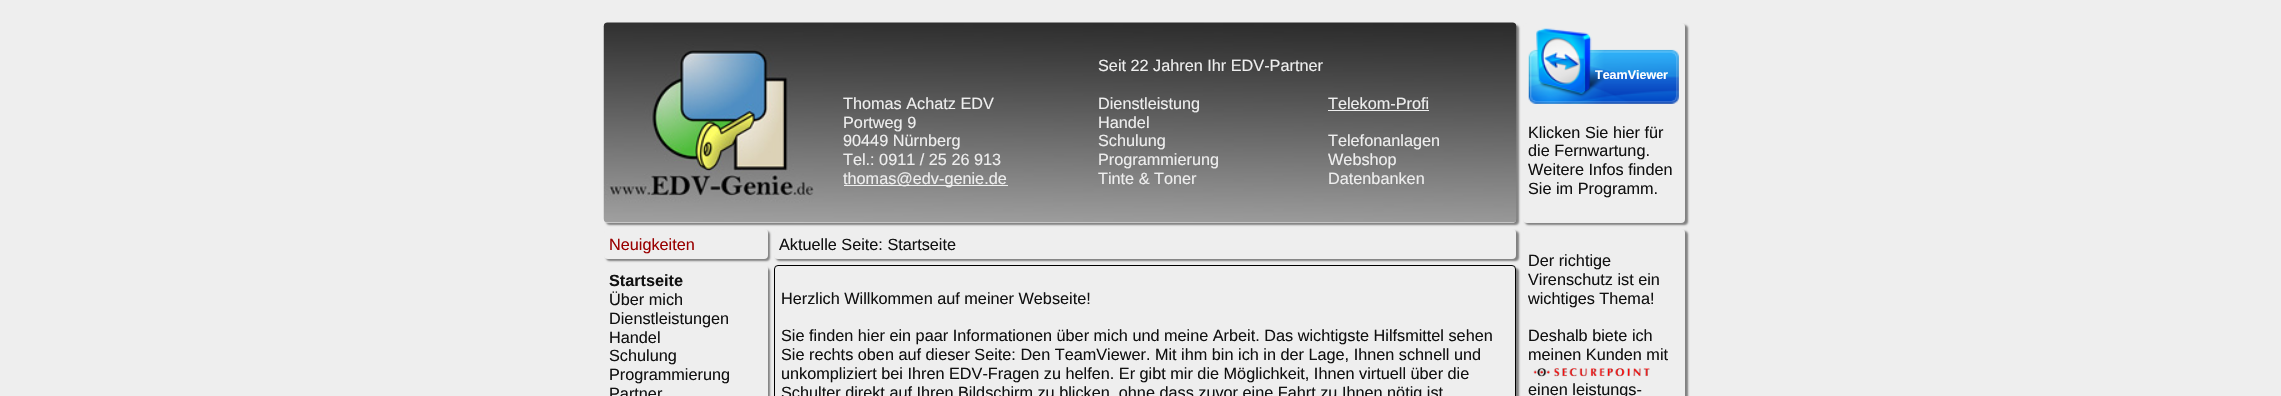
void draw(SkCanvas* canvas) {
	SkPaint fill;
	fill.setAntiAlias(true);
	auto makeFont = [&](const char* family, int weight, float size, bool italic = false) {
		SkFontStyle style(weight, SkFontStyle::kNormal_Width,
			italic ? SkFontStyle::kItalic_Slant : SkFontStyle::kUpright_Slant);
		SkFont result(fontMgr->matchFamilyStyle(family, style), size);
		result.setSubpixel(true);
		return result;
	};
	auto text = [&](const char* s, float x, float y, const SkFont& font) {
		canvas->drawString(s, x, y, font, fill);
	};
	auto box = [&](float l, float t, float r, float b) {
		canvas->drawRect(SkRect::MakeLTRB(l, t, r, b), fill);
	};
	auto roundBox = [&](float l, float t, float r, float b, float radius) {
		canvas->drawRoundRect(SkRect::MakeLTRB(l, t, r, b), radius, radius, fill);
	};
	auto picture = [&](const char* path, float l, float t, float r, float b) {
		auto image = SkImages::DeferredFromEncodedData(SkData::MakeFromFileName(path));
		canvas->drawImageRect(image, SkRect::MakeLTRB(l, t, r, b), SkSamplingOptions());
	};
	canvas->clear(0xFFEEEEEE);
	fill.setColor(0xFF808080);
	fill.setMaskFilter(SkMaskFilter::MakeBlur(kNormal_SkBlurStyle, 1));
	canvas->drawRoundRect(SkRect::MakeLTRB(606, 25, 1519, 225), 4, 4, fill);
	fill.setMaskFilter(nullptr);
	fill.setColor(0xFFEEEEEE);
	roundBox(604, 23, 1516, 223, 4);
	picture("image0.png", 603, 22, 1517, 223);
	box(844, 185, 1008, 186);
	box(1328, 110, 1429, 111);
	fill.setColor(0xFF808080);
	fill.setMaskFilter(SkMaskFilter::MakeBlur(kNormal_SkBlurStyle, 1));
	canvas->drawRoundRect(SkRect::MakeLTRB(1525, 25, 1688, 225), 4, 4, fill);
	fill.setMaskFilter(nullptr);
	fill.setColor(0xFFEEEEEE);
	roundBox(1523, 23, 1685, 223, 4);
	picture("image1.png", 1528, 28, 1679, 104);
	fill.setColor(0xFF808080);
	fill.setMaskFilter(SkMaskFilter::MakeBlur(kNormal_SkBlurStyle, 1));
	canvas->drawRoundRect(SkRect::MakeLTRB(606, 231, 770, 261), 4, 4, fill);
	fill.setMaskFilter(nullptr);
	fill.setColor(0xFFEEEEEE);
	roundBox(604, 229, 768, 259, 4);
	fill.setColor(0xFF808080);
	fill.setMaskFilter(SkMaskFilter::MakeBlur(kNormal_SkBlurStyle, 1));
	canvas->drawRoundRect(SkRect::MakeLTRB(776, 231, 1519, 261), 4, 4, fill);
	fill.setMaskFilter(nullptr);
	fill.setColor(0xFFEEEEEE);
	roundBox(774, 229, 1516, 259, 4);
	fill.setColor(0xFF808080);
	fill.setMaskFilter(SkMaskFilter::MakeBlur(kNormal_SkBlurStyle, 1));
	canvas->drawRoundRect(SkRect::MakeLTRB(606, 268, 770, 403), 4, 4, fill);
	fill.setMaskFilter(nullptr);
	fill.setColor(0xFFEEEEEE);
	roundBox(604, 265, 768, 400, 4);
	canvas->save();
	canvas->clipPath(SkPathBuilder(SkPathFillType::kEvenOdd).moveTo(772, 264).lineTo(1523, 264).lineTo(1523, 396).lineTo(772, 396).close().moveTo(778, 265).lineTo(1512, 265).cubicTo(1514, 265, 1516, 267, 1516, 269).lineTo(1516, 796).cubicTo(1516, 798, 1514, 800, 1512, 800).lineTo(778, 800).cubicTo(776, 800, 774, 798, 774, 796).lineTo(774, 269).cubicTo(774, 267, 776, 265, 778, 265).close().detach(), true);
	fill.setColor(0xFF808080);
	fill.setMaskFilter(SkMaskFilter::MakeBlur(kNormal_SkBlurStyle, 1));
	canvas->drawRoundRect(SkRect::MakeLTRB(776, 268, 1519, 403), 4, 4, fill);
	fill.setMaskFilter(nullptr);
	canvas->restore();
	fill.setStyle(SkPaint::kStroke_Style);
	fill.setStrokeWidth(1);
	fill.setColor(0xFF000000);
	canvas->drawRoundRect(SkRect::MakeLTRB(774.5f, 265.5f, 1515.5f, 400.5f), 3.5f, 3.5f, fill);
	fill.setStyle(SkPaint::kFill_Style);
	fill.setColor(0xFF808080);
	fill.setMaskFilter(SkMaskFilter::MakeBlur(kNormal_SkBlurStyle, 1));
	canvas->drawRoundRect(SkRect::MakeLTRB(1525, 231, 1688, 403), 4, 4, fill);
	fill.setMaskFilter(nullptr);
	fill.setColor(0xFFEEEEEE);
	roundBox(1523, 229, 1685, 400, 4);
	picture("image2.png", 1533, 368, 1650, 377);
	auto font1 = makeFont("Liberation Sans", 400, 16.25f);
	text("Thomas Achatz EDV", 843, 109, font1);
	text("Portweg 9", 843, 128, font1);
	text("90449 Nürnberg", 843, 146, font1);
	text("Tel.: 0911 / 25 26 913", 843, 165, font1);
	text("thomas@edv-genie.de", 843, 184, font1);
	text("Seit 22 Jahren Ihr EDV-Partner", 1098, 71, font1);
	text("Dienstleistung", 1098, 109, font1);
	text("Handel", 1098, 128, font1);
	text("Schulung", 1098, 146, font1);
	text("Programmierung", 1098, 165, font1);
	text("Tinte & Toner", 1098, 184, font1);
	text("Telekom-Profi", 1328, 109, font1);
	text("Telefonanlagen", 1328, 146, font1);
	text("Webshop", 1328, 165, font1);
	text("Datenbanken", 1328, 184, font1);
	auto font2 = makeFont("Liberation Sans", 700, 12.5f);
	fill.setColor(0xFFFFFFFF);
	text("TeamViewer", 1595, 79, font2);
	fill.setColor(0xFF111111);
	text("Klicken Sie hier für", 1528, 138, font1);
	text("die Fernwartung.", 1528, 156, font1);
	text("Weitere Infos finden", 1528, 175, font1);
	text("Sie im Programm.", 1528, 194, font1);
	fill.setColor(0xFF990000);
	text("Neuigkeiten", 609, 250, font1);
	fill.setColor(0xFF111111);
	text("Aktuelle Seite: Startseite", 779, 250, font1);
	auto font3 = makeFont("Liberation Sans", 700, 16.25f);
	text("Startseite", 609, 286, font3);
	text("Über mich", 609, 305, font1);
	text("Dienstleistungen", 609, 324, font1);
	text("Handel", 609, 343, font1);
	text("Schulung", 609, 361, font1);
	text("Programmierung", 609, 380, font1);
	text("Partner", 609, 399, font1);
	text("Herzlich Willkommen auf meiner Webseite!", 781, 304, font1);
	text("Sie finden hier ein paar Informationen über mich und meine Arbeit. Das wichtigste Hilfsmittel sehen", 781, 341, font1);
	text("Sie rechts oben auf dieser Seite: Den TeamViewer. Mit ihm bin ich in der Lage, Ihnen schnell und", 781, 360, font1);
	text("unkompliziert bei Ihren EDV-Fragen zu helfen. Er gibt mir die Möglichkeit, Ihnen virtuell über die", 781, 379, font1);
	text("Schulter direkt auf Ihren Bildschirm zu blicken, ohne dass zuvor eine Fahrt zu Ihnen nötig ist", 781, 398, font1);
	text("Der richtige", 1528, 266, font1);
	text("Virenschutz ist ein", 1528, 285, font1);
	text("wichtiges Thema!", 1528, 304, font1);
	text("Deshalb biete ich", 1528, 341, font1);
	text("meinen Kunden mit", 1528, 360, font1);
	text("einen leistungs-", 1528, 395, font1);
}
